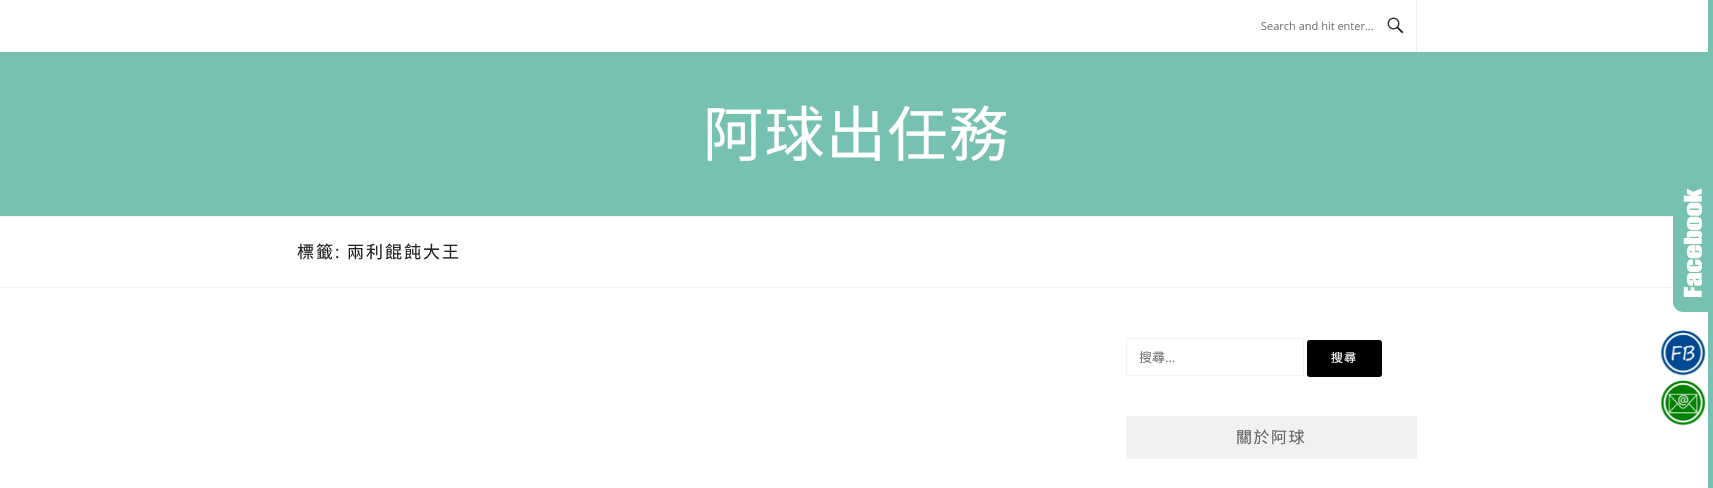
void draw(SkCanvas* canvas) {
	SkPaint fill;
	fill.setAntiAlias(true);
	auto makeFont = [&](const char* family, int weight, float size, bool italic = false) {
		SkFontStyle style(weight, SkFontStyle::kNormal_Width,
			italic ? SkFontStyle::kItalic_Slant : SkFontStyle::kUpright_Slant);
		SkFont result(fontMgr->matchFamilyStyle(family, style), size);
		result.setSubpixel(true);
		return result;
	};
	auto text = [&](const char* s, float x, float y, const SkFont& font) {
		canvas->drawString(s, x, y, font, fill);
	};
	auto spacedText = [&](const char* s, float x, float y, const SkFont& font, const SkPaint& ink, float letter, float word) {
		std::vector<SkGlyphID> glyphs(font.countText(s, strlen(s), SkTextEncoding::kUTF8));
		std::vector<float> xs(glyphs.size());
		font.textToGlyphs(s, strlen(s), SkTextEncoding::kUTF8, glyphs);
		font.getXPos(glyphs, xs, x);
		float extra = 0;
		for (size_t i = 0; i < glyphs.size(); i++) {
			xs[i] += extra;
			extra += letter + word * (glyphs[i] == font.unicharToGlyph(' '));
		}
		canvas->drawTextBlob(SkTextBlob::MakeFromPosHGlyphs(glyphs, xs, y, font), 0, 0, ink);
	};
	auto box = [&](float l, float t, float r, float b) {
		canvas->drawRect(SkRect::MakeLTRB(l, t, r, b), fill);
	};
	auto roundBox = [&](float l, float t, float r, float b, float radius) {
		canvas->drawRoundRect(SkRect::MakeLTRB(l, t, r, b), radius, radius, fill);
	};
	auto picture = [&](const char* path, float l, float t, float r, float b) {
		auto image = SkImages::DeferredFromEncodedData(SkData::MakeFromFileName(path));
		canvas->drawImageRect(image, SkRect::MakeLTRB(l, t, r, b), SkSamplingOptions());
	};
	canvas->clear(0xFFFFFFFF);
	fill.setColor(0xFFF1F1F1);
	box(1416, 0, 1417, 52);
	picture("image0.png", 1387, 17, 1404, 34);
	fill.setColor(0xFF76C1B2);
	box(0, 52, 1708, 216);
	fill.setColor(0xFFF1F1F1);
	box(0, 216, 1673, 217);
	box(0, 287, 1673, 288);
	fill.setStyle(SkPaint::kStroke_Style);
	fill.setStrokeWidth(1);
	canvas->drawRect(SkRect::MakeLTRB(1126.5f, 338.5f, 1303.5f, 375.5f), fill);
	fill.setStyle(SkPaint::kFill_Style);
	fill.setColor(0xFF000000);
	roundBox(1307, 340, 1382, 377, 3);
	fill.setColor(0xFFF1F1F1);
	box(1126, 416, 1417, 459);
	fill.setColor(0xFF76C1B2);
	box(1708, 0, 1713, 488);
	canvas->drawPath(SkPathBuilder().moveTo(1683, 177).lineTo(1713, 177).lineTo(1713, 312).lineTo(1683, 312).cubicTo(1677.5f, 312, 1673, 307.5f, 1673, 302).lineTo(1673, 187).cubicTo(1673, 181.5f, 1677.5f, 177, 1683, 177).close().detach(), fill);
	picture("image1.png", 1683, 188, 1702, 297);
	picture("image2.png", 1660, 330, 1706, 376);
	picture("image3.png", 1660, 380, 1706, 426);
	auto font1 = makeFont("Open Sans", 400, 11);
	fill.setColor(0xFF757575);
	text("Search and hit enter...", 1261, 30, font1);
	auto font2 = makeFont("Noto Sans CJK TC", 400, 60);
	fill.setColor(0xFFFFFFFF);
	spacedText("阿球出任務", 703, 156, font2, fill, 1.5f, 0);
	auto font3 = makeFont("Noto Sans CJK TC", 400, 17);
	fill.setColor(0xFF222222);
	spacedText("標籤", 297, 258, font3, fill, 2, 0);
	auto font4 = makeFont("Open Sans", 400, 17);
	spacedText(":", 335, 258, font4, fill, 2, 0);
	spacedText("兩利餛飩大王", 347, 258, font3, fill, 2, 0);
	auto font5 = makeFont("Noto Sans CJK TC", 400, 13);
	fill.setColor(0xFF757575);
	text("搜尋", 1139, 362, font5);
	auto font6 = makeFont("Open Sans", 400, 13);
	text("...", 1165, 362, font6);
	auto font7 = makeFont("Noto Sans CJK TC", 400, 12);
	fill.setColor(0xFFFFFFFF);
	spacedText("搜尋", 1331, 362, font7, fill, 1, 0);
	auto font8 = makeFont("Noto Sans CJK TC", 400, 16);
	fill.setColor(0xFF666666);
	spacedText("關於阿球", 1236, 443, font8, fill, 1.5f, 0);
}
